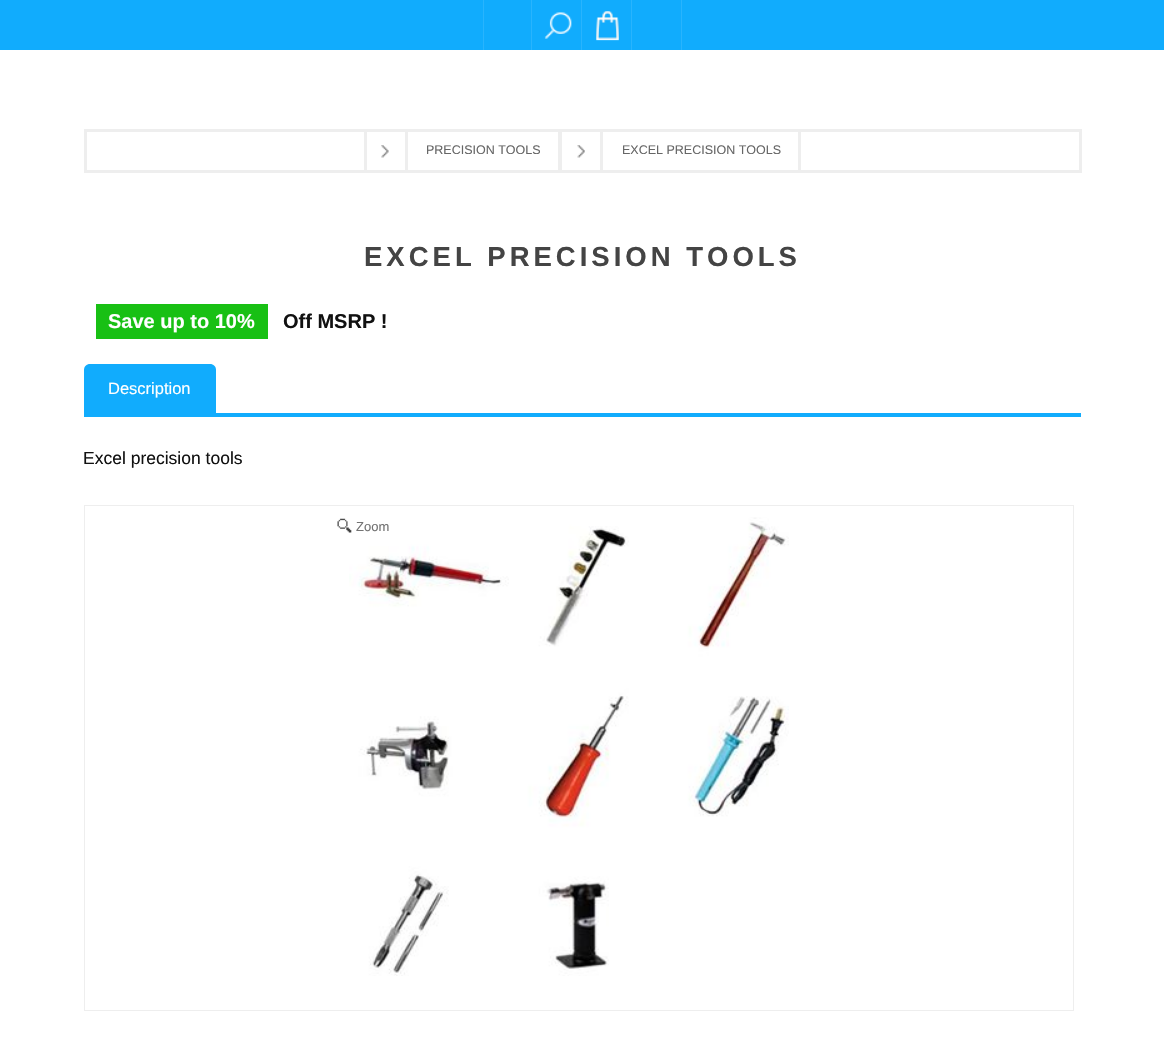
void draw(SkCanvas* canvas) {
	SkPaint fill;
	fill.setAntiAlias(true);
	auto makeFont = [&](const char* family, int weight, float size, bool italic = false) {
		SkFontStyle style(weight, SkFontStyle::kNormal_Width,
			italic ? SkFontStyle::kItalic_Slant : SkFontStyle::kUpright_Slant);
		SkFont result(fontMgr->matchFamilyStyle(family, style), size);
		result.setSubpixel(true);
		return result;
	};
	auto text = [&](const char* s, float x, float y, const SkFont& font) {
		canvas->drawString(s, x, y, font, fill);
	};
	auto spacedText = [&](const char* s, float x, float y, const SkFont& font, const SkPaint& ink, float letter, float word) {
		std::vector<SkGlyphID> glyphs(font.countText(s, strlen(s), SkTextEncoding::kUTF8));
		std::vector<float> xs(glyphs.size());
		font.textToGlyphs(s, strlen(s), SkTextEncoding::kUTF8, glyphs);
		font.getXPos(glyphs, xs, x);
		float extra = 0;
		for (size_t i = 0; i < glyphs.size(); i++) {
			xs[i] += extra;
			extra += letter + word * (glyphs[i] == font.unicharToGlyph(' '));
		}
		canvas->drawTextBlob(SkTextBlob::MakeFromPosHGlyphs(glyphs, xs, y, font), 0, 0, ink);
	};
	auto box = [&](float l, float t, float r, float b) {
		canvas->drawRect(SkRect::MakeLTRB(l, t, r, b), fill);
	};
	auto picture = [&](const char* path, float l, float t, float r, float b) {
		auto image = SkImages::DeferredFromEncodedData(SkData::MakeFromFileName(path));
		canvas->drawImageRect(image, SkRect::MakeLTRB(l, t, r, b), SkSamplingOptions());
	};
	canvas->clear(0xFFFFFFFF);
	fill.setColor(0xFF11ACFD);
	box(0, 0, 1164, 50);
	fill.setColor(0xFF29B4FD);
	box(531, 0, 532, 50);
	box(483, 0, 484, 50);
	picture("image0.png", 544, 12, 572, 39);
	box(581, 0, 582, 50);
	picture("image1.png", 596, 11, 619, 41);
	box(631, 0, 632, 50);
	box(681, 0, 682, 50);
	fill.setColor(0xFFEEEEEE);
	box(84, 129, 1081, 132);
	box(1079, 129, 1082, 173);
	box(84, 129, 87, 173);
	picture("image2.png", 381, 145, 389, 158);
	fill.setStyle(SkPaint::kStroke_Style);
	fill.setStrokeWidth(3);
	canvas->drawRect(SkRect::MakeLTRB(365.5f, 130.5f, 406.5f, 171.5f), fill);
	canvas->drawRect(SkRect::MakeLTRB(406.5f, 130.5f, 559.5f, 171.5f), fill);
	picture("image3.png", 577, 145, 585, 158);
	canvas->drawRect(SkRect::MakeLTRB(560.5f, 130.5f, 601.5f, 171.5f), fill);
	canvas->drawRect(SkRect::MakeLTRB(601.5f, 130.5f, 799.5f, 171.5f), fill);
	fill.setStyle(SkPaint::kFill_Style);
	box(86, 170, 1079, 173);
	fill.setColor(0xFF18C014);
	box(96, 304, 268, 339);
	fill.setColor(0xFF11ACFD);
	box(84, 413, 1081, 417);
	canvas->drawPath(SkPathBuilder().moveTo(90, 364).lineTo(210, 364).cubicTo(213.5f, 364, 216, 366.5f, 216, 370).lineTo(216, 413).lineTo(84, 413).lineTo(84, 370).cubicTo(84, 366.5f, 86.5f, 364, 90, 364).close().detach(), fill);
	fill.setStyle(SkPaint::kStroke_Style);
	fill.setStrokeWidth(1);
	fill.setColor(0xFFEEEEEE);
	canvas->drawRect(SkRect::MakeLTRB(84.5f, 505.5f, 1073.5f, 1010.5f), fill);
	picture("image4.png", 349, 517, 789, 976);
	picture("image5.png", 337, 518, 352, 533);
	auto font1 = makeFont("Liberation Sans", 400, 12.5f);
	fill.setStyle(SkPaint::kFill_Style);
	fill.setColor(0xFF666666);
	text("PRECISION TOOLS", 426, 154, font1);
	text("EXCEL PRECISION TOOLS", 622, 154, font1);
	auto font2 = makeFont("Liberation Sans", 700, 27.5f);
	fill.setColor(0xFF444444);
	spacedText("EXCEL PRECISION TOOLS", 364, 266, font2, fill, 4, 0);
	auto font3 = makeFont("Liberation Sans", 700, 20);
	fill.setColor(0xFFFFFFFF);
	text("Save up to 10%", 108, 328, font3);
	fill.setColor(0xFF111111);
	text("Off MSRP !", 283, 328, font3);
	auto font4 = makeFont("Liberation Sans", 400, 16.5f);
	fill.setColor(0xFFFFFFFF);
	text("Description", 108, 394, font4);
	auto font5 = makeFont("Liberation Sans", 400, 17.5f);
	fill.setColor(0xFF111111);
	text("Excel precision tools", 83, 464, font5);
	auto font6 = makeFont("Liberation Sans", 400, 13);
	fill.setColor(0xFF737373);
	text("Zoom", 356, 531, font6);
}
